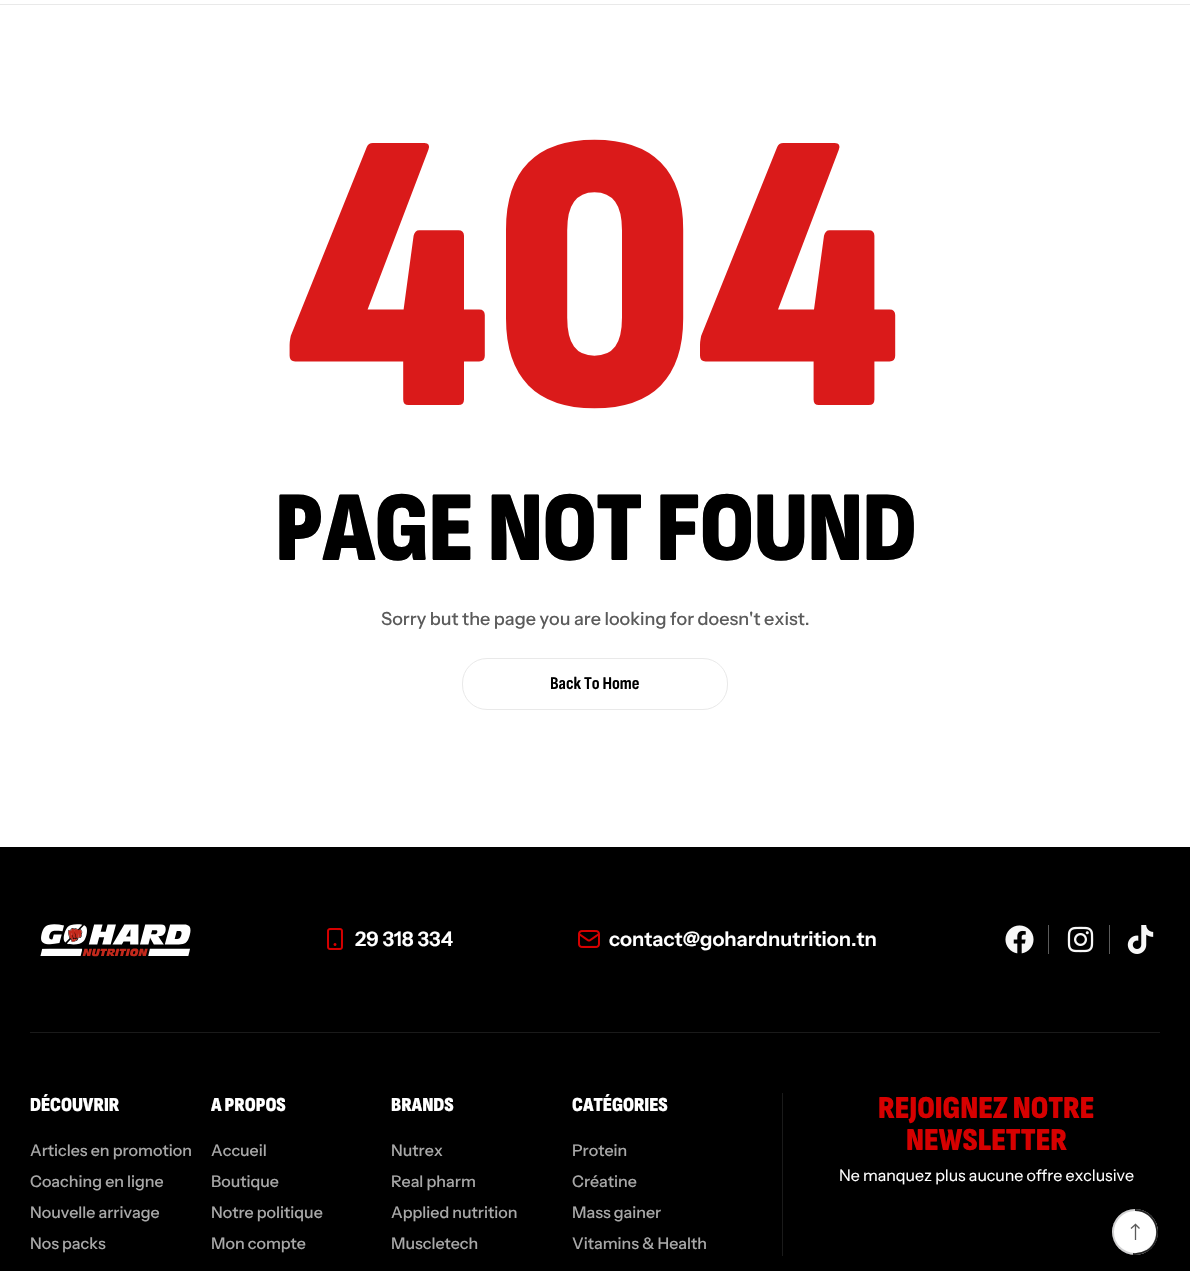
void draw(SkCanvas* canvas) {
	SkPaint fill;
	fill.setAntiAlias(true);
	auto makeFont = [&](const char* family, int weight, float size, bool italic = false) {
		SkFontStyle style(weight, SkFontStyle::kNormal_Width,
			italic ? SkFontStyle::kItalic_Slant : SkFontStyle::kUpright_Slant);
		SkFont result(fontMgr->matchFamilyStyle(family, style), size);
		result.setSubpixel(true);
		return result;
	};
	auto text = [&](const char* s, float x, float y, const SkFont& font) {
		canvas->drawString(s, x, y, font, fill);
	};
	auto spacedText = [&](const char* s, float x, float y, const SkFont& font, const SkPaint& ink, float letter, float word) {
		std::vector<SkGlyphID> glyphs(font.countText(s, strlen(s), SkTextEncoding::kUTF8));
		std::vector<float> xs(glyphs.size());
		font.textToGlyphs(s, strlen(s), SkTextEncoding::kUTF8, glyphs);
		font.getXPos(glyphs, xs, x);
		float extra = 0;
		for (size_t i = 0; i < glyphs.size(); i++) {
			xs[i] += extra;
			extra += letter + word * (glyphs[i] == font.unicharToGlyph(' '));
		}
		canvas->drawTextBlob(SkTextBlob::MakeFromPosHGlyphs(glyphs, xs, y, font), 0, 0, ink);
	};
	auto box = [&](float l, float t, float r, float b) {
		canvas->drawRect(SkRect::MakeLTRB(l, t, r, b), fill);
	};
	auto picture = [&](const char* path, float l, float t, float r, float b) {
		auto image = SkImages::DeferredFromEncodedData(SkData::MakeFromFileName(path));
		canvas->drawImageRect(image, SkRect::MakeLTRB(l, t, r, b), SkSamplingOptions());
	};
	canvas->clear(0xFFFFFFFF);
	fill.setColor(0xFFE9E9E9);
	box(0, 4, 1190, 5);
	fill.setStyle(SkPaint::kStroke_Style);
	fill.setStrokeWidth(1);
	canvas->drawRoundRect(SkRect::MakeLTRB(462.5f, 658.5f, 727.5f, 709.5f), 24.5f, 24.5f, fill);
	fill.setStyle(SkPaint::kFill_Style);
	fill.setColor(0xFF000000);
	box(0, 847, 1190, 1271);
	picture("image0.png", 40, 924, 191, 957);
	picture("image1.png", 327, 928, 343, 950);
	picture("image2.png", 578, 930, 600, 948);
	picture("image3.png", 1005, 925, 1034, 954);
	fill.setColor(0xFF5B5B5B);
	box(1048, 925, 1049, 954);
	picture("image4.png", 1067, 926, 1094, 953);
	box(1109, 925, 1110, 954);
	picture("image5.png", 1127, 925, 1154, 954);
	fill.setColor(0xFF1A1A1A);
	box(30, 1032, 1160, 1033);
	box(782, 1093, 783, 1256);
	fill.setColor(0xFFFFFFFF);
	canvas->drawCircle(1135, 1232, 23, fill);
	fill.setStyle(SkPaint::kStroke_Style);
	fill.setStrokeWidth(2);
	fill.setColor(0x33202025);
	canvas->drawCircle(1135, 1232, 22, fill);
	fill.setStrokeWidth(1.8f);
	fill.setColor(0xFF222222);
	canvas->drawPath(SkPathBuilder().moveTo(1135, 1210).cubicTo(1156.5f, 1210, 1165.5f, 1238, 1147.5f, 1250.5f).cubicTo(1143, 1253, 1138, 1254.5f, 1133, 1254).detach(), fill);
	fill.setStrokeWidth(1.3f);
	fill.setColor(0xFF5B5B5B);
	canvas->drawPath(SkPathBuilder().moveTo(1139.5f, 1228.5f).lineTo(1135.5f, 1224.5f).lineTo(1131, 1228.5f).moveTo(1135.5f, 1224.5f).lineTo(1135.5f, 1240).detach(), fill);
	auto font1 = makeFont("Sofia Sans Condensed", 900, 400);
	fill.setStyle(SkPaint::kFill_Style);
	fill.setColor(0xFFDA1A1A);
	text("404", 286, 405, font1);
	auto font2 = makeFont("Sofia Sans Condensed", 900, 100);
	fill.setColor(0xFF000000);
	spacedText("PAGE NOT FOUND", 275, 560, font2, fill, -1, 0);
	auto font3 = makeFont("Instrument Sans", 500, 18);
	fill.setColor(0xFF5B5B5B);
	text("Sorry but the page you are looking for doesn't exist.", 381, 625, font3);
	auto font4 = makeFont("Sofia Sans Condensed", 700, 18);
	fill.setColor(0xFF000000);
	text("Back To Home", 550, 689, font4);
	auto font5 = makeFont("Instrument Sans", 600, 20);
	fill.setColor(0xFFFFFFFF);
	text("29 318 334", 355, 946, font5);
	text("contact@gohardnutrition.tn", 609, 946, font5);
	auto font6 = makeFont("Sofia Sans Condensed", 900, 20);
	text("DÉCOUVRIR", 30, 1111, font6);
	auto font7 = makeFont("Instrument Sans", 500, 16);
	fill.setColor(0xFFA8A8A8);
	text("Articles en promotion", 30, 1156, font7);
	text("Coaching en ligne", 30, 1187, font7);
	text("Nouvelle arrivage", 30, 1218, font7);
	text("Nos packs", 30, 1249, font7);
	fill.setColor(0xFFFFFFFF);
	text("A PROPOS", 211, 1111, font6);
	fill.setColor(0xFFA8A8A8);
	text("Accueil", 211, 1156, font7);
	text("Boutique", 211, 1187, font7);
	text("Notre politique", 211, 1218, font7);
	text("Mon compte", 211, 1249, font7);
	fill.setColor(0xFFFFFFFF);
	text("BRANDS", 391, 1111, font6);
	fill.setColor(0xFFA8A8A8);
	text("Nutrex", 391, 1156, font7);
	text("Real pharm", 391, 1187, font7);
	text("Applied nutrition", 391, 1218, font7);
	text("Muscletech", 391, 1249, font7);
	fill.setColor(0xFFFFFFFF);
	text("CATÉGORIES", 572, 1111, font6);
	fill.setColor(0xFFA8A8A8);
	text("Protein", 572, 1156, font7);
	text("Créatine", 572, 1187, font7);
	text("Mass gainer", 572, 1218, font7);
	text("Vitamins & Health", 572, 1249, font7);
	auto font8 = makeFont("Sofia Sans Condensed", 900, 32);
	fill.setColor(0xFFD60000);
	text("REJOIGNEZ NOTRE", 878, 1118, font8);
	text("NEWSLETTER", 906, 1150, font8);
	auto font9 = makeFont("Instrument Sans", 400, 16);
	fill.setColor(0xFFFFFFFF);
	text("Ne manquez plus aucune offre exclusive", 839, 1181, font9);
}
